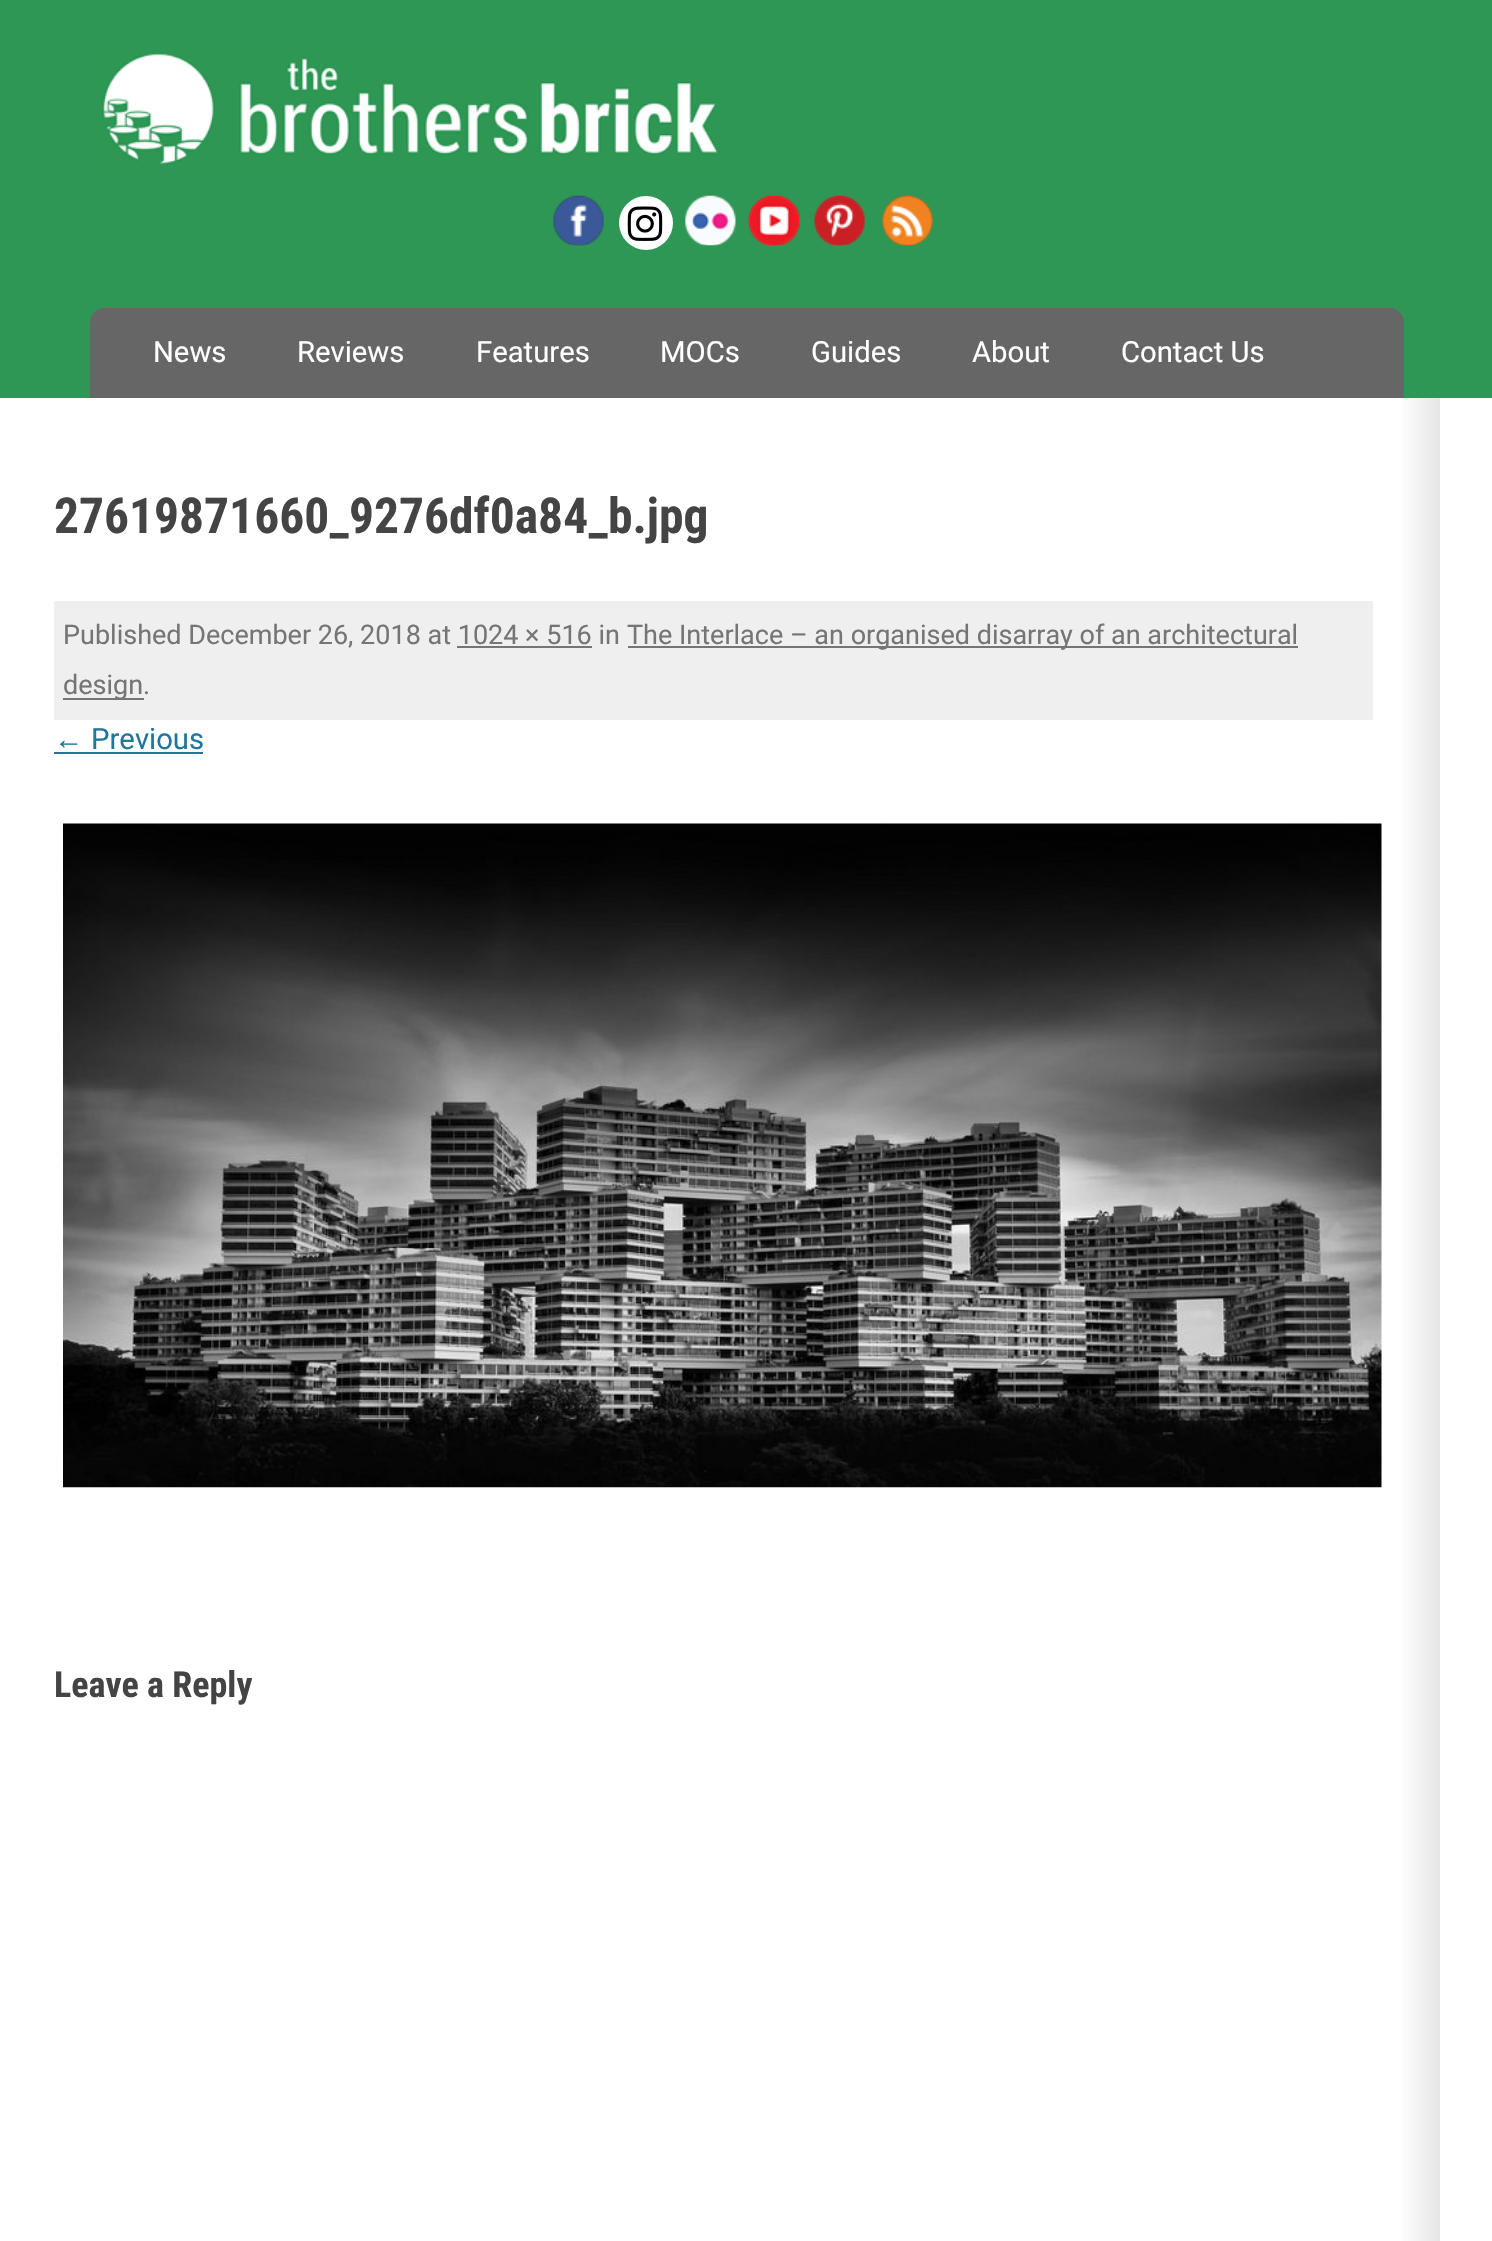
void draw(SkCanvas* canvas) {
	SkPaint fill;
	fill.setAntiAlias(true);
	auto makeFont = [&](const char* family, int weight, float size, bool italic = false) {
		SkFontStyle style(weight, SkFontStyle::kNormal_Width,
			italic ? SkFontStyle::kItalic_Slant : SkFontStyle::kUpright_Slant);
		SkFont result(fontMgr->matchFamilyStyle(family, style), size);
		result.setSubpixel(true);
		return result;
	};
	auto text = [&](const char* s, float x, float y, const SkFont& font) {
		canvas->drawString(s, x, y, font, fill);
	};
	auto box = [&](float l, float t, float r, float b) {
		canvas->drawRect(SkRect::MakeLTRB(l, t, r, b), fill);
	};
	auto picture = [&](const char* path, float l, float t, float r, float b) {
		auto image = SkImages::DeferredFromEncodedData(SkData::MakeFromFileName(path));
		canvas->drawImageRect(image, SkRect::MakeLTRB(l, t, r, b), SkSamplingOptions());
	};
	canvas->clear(0xFFFFFFFF);
	fill.setColor(0xFF2E9755);
	box(0, 0, 1492, 398);
	picture("image0.png", 102, 54, 719, 164);
	picture("image1.png", 553, 195, 604, 246);
	fill.setColor(0xFFFFFFFF);
	canvas->drawCircle(646, 223, 27, fill);
	picture("image2.png", 627, 206, 663, 241);
	picture("image3.png", 685, 195, 736, 246);
	picture("image4.png", 747, 195, 800, 246);
	picture("image5.png", 814, 195, 865, 246);
	picture("image6.png", 882, 195, 933, 246);
	fill.setColor(0xFF666666);
	canvas->drawPath(SkPathBuilder().moveTo(104, 308).lineTo(1390, 308).cubicTo(1397.5f, 308, 1404, 314.5f, 1404, 322).lineTo(1404, 398).lineTo(90, 398).lineTo(90, 322).cubicTo(90, 314.5f, 96.5f, 308, 104, 308).close().detach(), fill);
	{
		const SkColor colors[] = {0xFFFFFFFF, 0xFFE5E5E5};
		const float stops[] = {0.97f, 1};
		const SkPoint ends[] = {{54, 1634}, {1440, 1634}};
		fill.setShader(SkGradientShader::MakeLinear(ends, colors, stops, 2, SkTileMode::kClamp));
		fill.setAlpha(255);
	}
	box(1402, 398, 1440, 2241);
	fill.setShader(nullptr);
	fill.setColor(0xFFEFEFEF);
	box(54, 601, 1373, 720);
	fill.setColor(0xFF757575);
	box(628, 646, 1298, 648);
	box(457, 646, 592, 648);
	box(63, 698, 144, 700);
	fill.setColor(0xFF21769B);
	box(54, 752, 203, 754);
	picture("image7.png", 63, 823, 1382, 1488);
	auto font1 = makeFont("Roboto", 400, 29.25f);
	fill.setColor(0xFFFFFFFF);
	text("News", 153, 362, font1);
	text("Reviews", 297, 362, font1);
	text("Features", 476, 362, font1);
	text("MOCs", 660, 362, font1);
	text("Guides", 811, 362, font1);
	text("About", 972, 362, font1);
	text("Contact Us", 1121, 362, font1);
	auto font2 = makeFont("Roboto Condensed", 700, 49.5f);
	fill.setColor(0xFF444444);
	text("27619871660_9276df0a84_b.jpg", 54, 533, font2);
	auto font3 = makeFont("Roboto", 400, 27);
	fill.setColor(0xFF757575);
	text("Published December 26, 2018 at 1024 × 516 in", 63, 644, font3);
	text("The Interlace – an organised disarray of an architectural", 627, 644, font3);
	text("design.", 63, 694, font3);
	auto font4 = makeFont("Liberation Sans", 400, 29.25f);
	fill.setColor(0xFF21769B);
	text("←", 54, 749, font4);
	text("Previous", 91, 749, font1);
	auto font5 = makeFont("Roboto Condensed", 700, 36);
	fill.setColor(0xFF444444);
	text("Leave a Reply", 54, 1697, font5);
}
